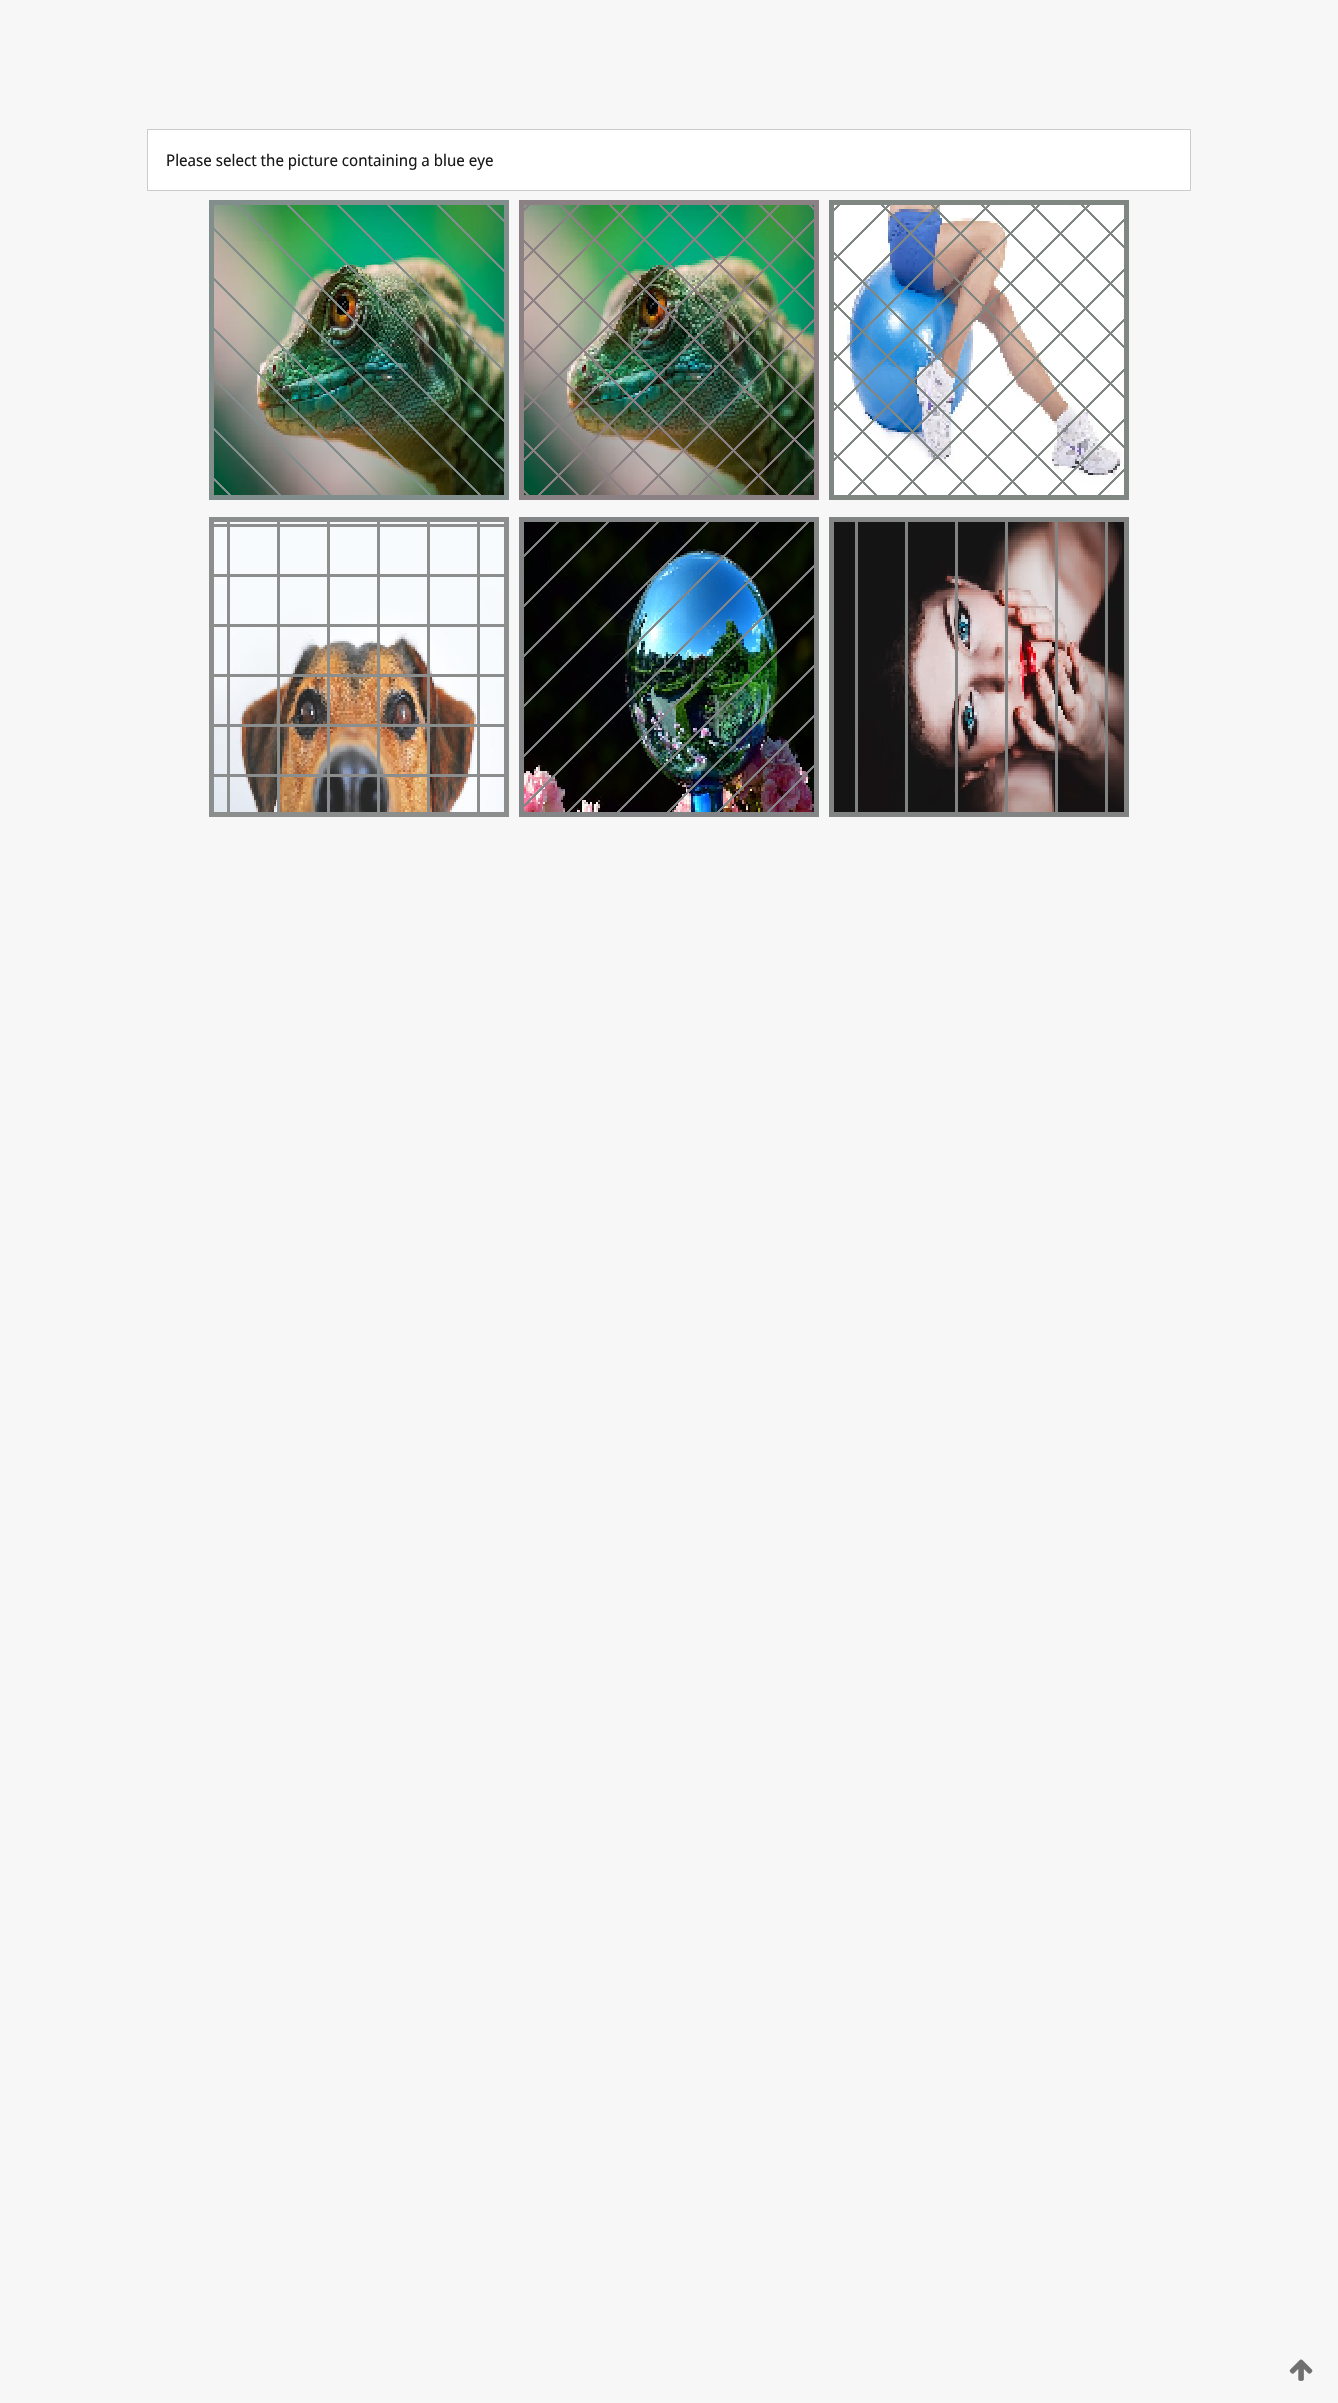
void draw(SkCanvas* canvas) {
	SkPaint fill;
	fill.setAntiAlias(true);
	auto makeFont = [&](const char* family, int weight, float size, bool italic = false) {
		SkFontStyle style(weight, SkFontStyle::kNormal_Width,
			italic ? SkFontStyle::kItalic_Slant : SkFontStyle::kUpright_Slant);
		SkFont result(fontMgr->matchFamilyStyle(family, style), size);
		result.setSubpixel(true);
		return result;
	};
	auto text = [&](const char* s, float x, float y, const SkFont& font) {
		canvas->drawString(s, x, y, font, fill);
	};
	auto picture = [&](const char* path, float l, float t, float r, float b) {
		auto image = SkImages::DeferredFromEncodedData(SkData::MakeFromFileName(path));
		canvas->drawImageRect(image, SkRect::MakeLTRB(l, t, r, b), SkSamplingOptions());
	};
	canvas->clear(0xFFF7F7F7);
	fill.setColor(0xFFFFFFFF);
	canvas->drawRect(SkRect::MakeLTRB(147.5f, 129.5f, 1190.5f, 190.5f), fill);
	fill.setStyle(SkPaint::kStroke_Style);
	fill.setStrokeWidth(1);
	fill.setColor(0xFFCCCCCC);
	canvas->drawRect(SkRect::MakeLTRB(147.5f, 129.5f, 1190.5f, 190.5f), fill);
	picture("image0.png", 209, 200, 509, 500);
	picture("image1.png", 519, 200, 819, 500);
	picture("image2.png", 829, 200, 1129, 500);
	picture("image3.png", 209, 517, 509, 817);
	picture("image4.png", 519, 517, 819, 817);
	picture("image5.png", 829, 517, 1129, 817);
	picture("image6.png", 1289, 2359, 1313, 2381);
	auto font1 = makeFont("Noto Sans Display", 400, 16);
	fill.setStyle(SkPaint::kFill_Style);
	fill.setColor(0xFF1A1A1A);
	text("Please select the picture containing a blue eye", 166, 166, font1);
}
